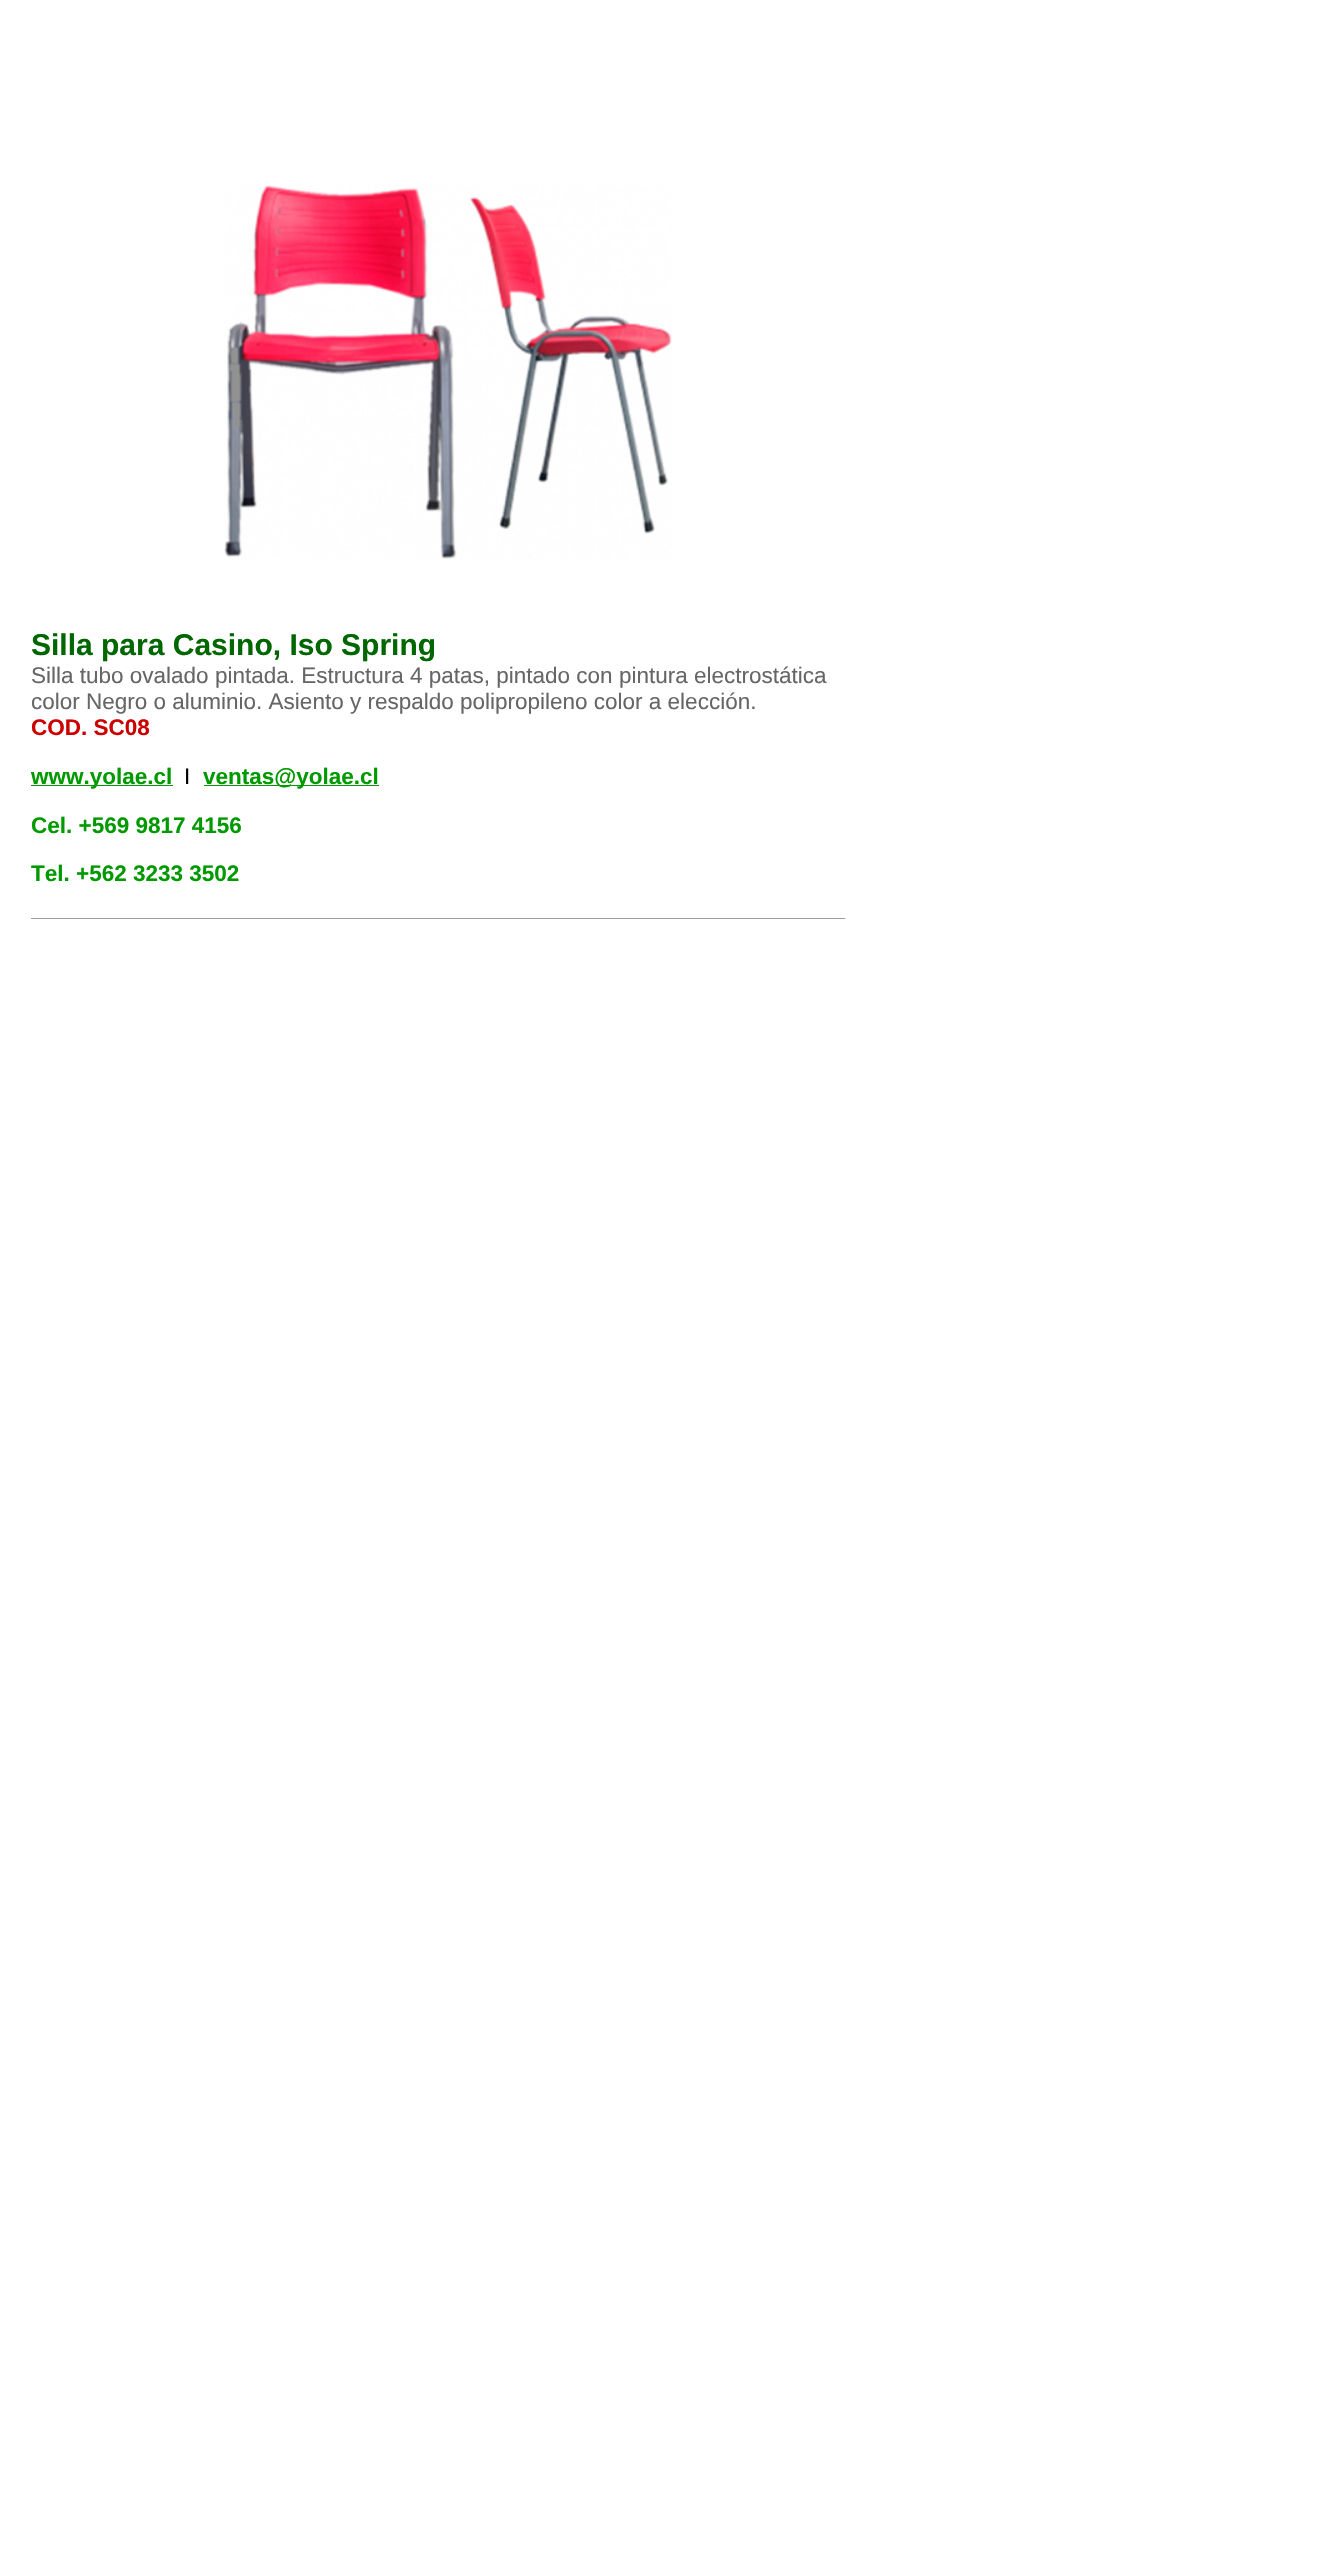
void draw(SkCanvas* canvas) {
	SkPaint fill;
	fill.setAntiAlias(true);
	auto makeFont = [&](const char* family, int weight, float size, bool italic = false) {
		SkFontStyle style(weight, SkFontStyle::kNormal_Width,
			italic ? SkFontStyle::kItalic_Slant : SkFontStyle::kUpright_Slant);
		SkFont result(fontMgr->matchFamilyStyle(family, style), size);
		result.setSubpixel(true);
		return result;
	};
	auto text = [&](const char* s, float x, float y, const SkFont& font) {
		canvas->drawString(s, x, y, font, fill);
	};
	auto box = [&](float l, float t, float r, float b) {
		canvas->drawRect(SkRect::MakeLTRB(l, t, r, b), fill);
	};
	auto picture = [&](const char* path, float l, float t, float r, float b) {
		auto image = SkImages::DeferredFromEncodedData(SkData::MakeFromFileName(path));
		canvas->drawImageRect(image, SkRect::MakeLTRB(l, t, r, b), SkSamplingOptions());
	};
	canvas->clear(0xFFFFFFFF);
	picture("image0.png", 224, 185, 672, 559);
	fill.setColor(0xFF009900);
	box(31, 785, 173, 786);
	box(204, 785, 379, 786);
	fill.setColor(0xFF9F9F9F);
	box(31, 918, 846, 919);
	fill.setColor(0xFFEEEEEE);
	box(845, 918, 846, 919);
	auto font1 = makeFont("Liberation Sans", 700, 30);
	fill.setColor(0xFF006600);
	text("Silla para Casino, Iso Spring", 31, 655, font1);
	auto font2 = makeFont("Liberation Sans", 400, 22.5f);
	fill.setColor(0xFF666666);
	text("Silla tubo ovalado pintada. Estructura 4 patas, pintado con pintura electrostática", 31, 683, font2);
	text("color Negro o aluminio. Asiento y respaldo polipropileno color a elección.", 31, 709, font2);
	auto font3 = makeFont("Liberation Sans", 700, 22.5f);
	fill.setColor(0xFFCC0000);
	text("COD. SC08", 31, 735, font3);
	fill.setColor(0xFF009900);
	text("www.yolae.cl", 31, 784, font3);
	fill.setColor(0xFF000000);
	text("I", 184, 784, font2);
	fill.setColor(0xFF009900);
	text("ventas@yolae.cl", 203, 784, font3);
	text("Cel. +569 9817 4156", 31, 833, font3);
	text("Tel. +562 3233 3502", 31, 881, font3);
}
